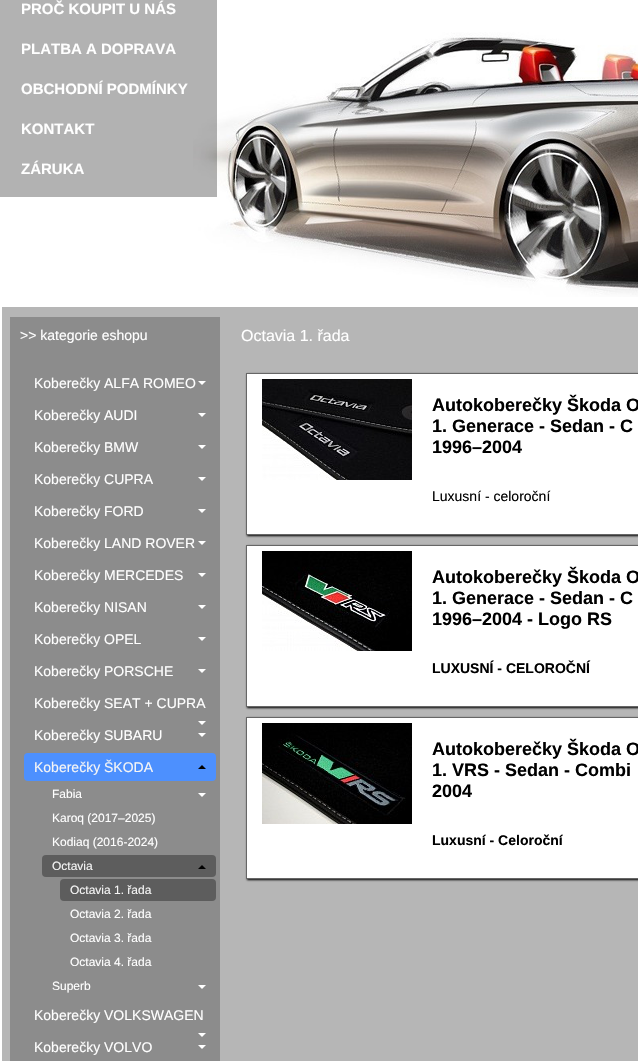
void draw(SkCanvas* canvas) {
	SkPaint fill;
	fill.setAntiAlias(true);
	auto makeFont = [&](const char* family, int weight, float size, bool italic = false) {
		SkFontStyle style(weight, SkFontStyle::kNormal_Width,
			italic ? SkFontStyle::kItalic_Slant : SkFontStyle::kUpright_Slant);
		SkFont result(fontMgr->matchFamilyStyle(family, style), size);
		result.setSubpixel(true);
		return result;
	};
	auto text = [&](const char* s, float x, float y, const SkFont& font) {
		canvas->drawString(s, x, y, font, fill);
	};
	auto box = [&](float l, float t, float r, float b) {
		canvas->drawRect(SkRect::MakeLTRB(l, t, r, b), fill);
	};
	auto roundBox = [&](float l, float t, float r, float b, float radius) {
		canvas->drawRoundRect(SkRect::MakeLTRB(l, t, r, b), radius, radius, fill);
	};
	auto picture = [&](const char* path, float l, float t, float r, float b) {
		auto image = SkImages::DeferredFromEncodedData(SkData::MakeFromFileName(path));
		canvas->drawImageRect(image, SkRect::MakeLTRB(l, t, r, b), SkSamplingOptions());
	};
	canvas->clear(0xFFFFFFFF);
	picture("image0.png", 193, 32, 638, 297);
	fill.setColor(0x4D000000);
	box(0, 0, 217, 197);
	fill.setColor(0xFFB6B6B6);
	box(2, 307, 638, 1061);
	fill.setColor(0xFF8C8C8C);
	box(10, 317, 220, 1061);
	fill.setColor(0xFFFFFFFF);
	canvas->drawPath(SkPathBuilder().moveTo(198, 381).lineTo(206, 381).lineTo(202, 385).close().moveTo(198, 413).lineTo(206, 413).lineTo(202, 417).close().detach(), fill);
	canvas->drawPath(SkPathBuilder().moveTo(198, 445).lineTo(206, 445).lineTo(202, 449).close().moveTo(198, 477).lineTo(206, 477).lineTo(202, 481).close().detach(), fill);
	canvas->drawPath(SkPathBuilder().moveTo(198, 509).lineTo(206, 509).lineTo(202, 513).close().moveTo(198, 541).lineTo(206, 541).lineTo(202, 545).close().detach(), fill);
	canvas->drawPath(SkPathBuilder().moveTo(198, 573).lineTo(206, 573).lineTo(202, 577).close().moveTo(198, 605).lineTo(206, 605).lineTo(202, 609).close().detach(), fill);
	canvas->drawPath(SkPathBuilder().moveTo(198, 637).lineTo(206, 637).lineTo(202, 641).close().moveTo(198, 669).lineTo(206, 669).lineTo(202, 673).close().detach(), fill);
	canvas->drawPath(SkPathBuilder().moveTo(198, 721).lineTo(206, 721).lineTo(202, 725).close().moveTo(198, 733).lineTo(206, 733).lineTo(202, 737).close().detach(), fill);
	fill.setColor(0xFF4D90FE);
	roundBox(24, 753, 216, 781, 4);
	fill.setColor(0xFF000000);
	canvas->drawPath(SkPathBuilder().moveTo(206, 769).lineTo(198, 769).lineTo(202, 765).close().detach(), fill);
	fill.setColor(0xFFFFFFFF);
	canvas->drawPath(SkPathBuilder().moveTo(198, 793).lineTo(206, 793).lineTo(202, 797).close().detach(), fill);
	fill.setColor(0xFF5D5D5D);
	roundBox(42, 855, 216, 877, 4);
	fill.setColor(0xFF000000);
	canvas->drawPath(SkPathBuilder().moveTo(206, 869).lineTo(198, 869).lineTo(202, 865).close().detach(), fill);
	fill.setColor(0xFF5D5D5D);
	roundBox(60, 879, 216, 901, 4);
	fill.setColor(0xFFFFFFFF);
	canvas->drawPath(SkPathBuilder().moveTo(198, 985).lineTo(206, 985).lineTo(202, 989).close().moveTo(198, 1033).lineTo(206, 1033).lineTo(202, 1037).close().detach(), fill);
	canvas->drawPath(SkPathBuilder().moveTo(198, 1045).lineTo(206, 1045).lineTo(202, 1049).close().detach(), fill);
	fill.setColor(0xFF000000);
	fill.setMaskFilter(SkMaskFilter::MakeBlur(kNormal_SkBlurStyle, 1));
	canvas->drawRect(SkRect::MakeLTRB(247, 374, 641, 536), fill);
	fill.setMaskFilter(nullptr);
	fill.setColor(0xFFFFFFFF);
	canvas->drawRect(SkRect::MakeLTRB(246.5f, 373.5f, 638.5f, 534.5f), fill);
	fill.setStyle(SkPaint::kStroke_Style);
	fill.setStrokeWidth(1);
	fill.setColor(0xFF666666);
	canvas->drawRect(SkRect::MakeLTRB(246.5f, 373.5f, 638.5f, 534.5f), fill);
	picture("image1.png", 262, 379, 412, 480);
	fill.setStyle(SkPaint::kFill_Style);
	fill.setColor(0xFF000000);
	fill.setMaskFilter(SkMaskFilter::MakeBlur(kNormal_SkBlurStyle, 1));
	canvas->drawRect(SkRect::MakeLTRB(247, 546, 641, 708), fill);
	fill.setMaskFilter(nullptr);
	fill.setColor(0xFFFFFFFF);
	canvas->drawRect(SkRect::MakeLTRB(246.5f, 545.5f, 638.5f, 706.5f), fill);
	fill.setStyle(SkPaint::kStroke_Style);
	fill.setColor(0xFF666666);
	canvas->drawRect(SkRect::MakeLTRB(246.5f, 545.5f, 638.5f, 706.5f), fill);
	picture("image2.png", 262, 551, 412, 651);
	fill.setStyle(SkPaint::kFill_Style);
	fill.setColor(0xFF000000);
	fill.setMaskFilter(SkMaskFilter::MakeBlur(kNormal_SkBlurStyle, 1));
	canvas->drawRect(SkRect::MakeLTRB(247, 718, 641, 880), fill);
	fill.setMaskFilter(nullptr);
	fill.setColor(0xFFFFFFFF);
	canvas->drawRect(SkRect::MakeLTRB(246.5f, 717.5f, 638.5f, 878.5f), fill);
	fill.setStyle(SkPaint::kStroke_Style);
	fill.setColor(0xFF666666);
	canvas->drawRect(SkRect::MakeLTRB(246.5f, 717.5f, 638.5f, 878.5f), fill);
	picture("image3.png", 262, 723, 412, 824);
	auto font1 = makeFont("Liberation Sans", 700, 15);
	fill.setStyle(SkPaint::kFill_Style);
	fill.setColor(0xFFFFFFFF);
	text("PROČ KOUPIT U NÁS", 21, 14, font1);
	text("PLATBA A DOPRAVA", 21, 54, font1);
	text("OBCHODNÍ PODMÍNKY", 21, 94, font1);
	text("KONTAKT", 21, 134, font1);
	text("ZÁRUKA", 21, 174, font1);
	auto font2 = makeFont("Liberation Sans", 400, 14);
	text(">> kategorie eshopu", 20, 340, font2);
	text("Koberečky ALFA ROMEO", 34, 388, font2);
	text("Koberečky AUDI", 34, 420, font2);
	text("Koberečky BMW", 34, 452, font2);
	text("Koberečky CUPRA", 34, 484, font2);
	text("Koberečky FORD", 34, 516, font2);
	text("Koberečky LAND ROVER", 34, 548, font2);
	text("Koberečky MERCEDES", 34, 580, font2);
	text("Koberečky NISAN", 34, 612, font2);
	text("Koberečky OPEL", 34, 644, font2);
	text("Koberečky PORSCHE", 34, 676, font2);
	text("Koberečky SEAT + CUPRA", 34, 708, font2);
	text("Koberečky SUBARU", 34, 740, font2);
	fill.setColor(0xFFF5F5F5);
	text("Koberečky ŠKODA", 34, 772, font2);
	auto font3 = makeFont("Liberation Sans", 400, 12);
	fill.setColor(0xFFFFFFFF);
	text("Fabia", 52, 798, font3);
	text("Karoq (2017–2025)", 52, 822, font3);
	text("Kodiaq (2016-2024)", 52, 846, font3);
	fill.setColor(0xFFF5F5F5);
	text("Octavia", 52, 870, font3);
	text("Octavia 1. řada", 70, 894, font3);
	fill.setColor(0xFFFFFFFF);
	text("Octavia 2. řada", 70, 918, font3);
	text("Octavia 3. řada", 70, 942, font3);
	text("Octavia 4. řada", 70, 966, font3);
	text("Superb", 52, 990, font3);
	text("Koberečky VOLKSWAGEN", 34, 1020, font2);
	text("Koberečky VOLVO", 34, 1052, font2);
	auto font4 = makeFont("Liberation Sans", 400, 16);
	text("Octavia 1. řada", 241, 341, font4);
	auto font5 = makeFont("Liberation Sans", 700, 18);
	fill.setColor(0xFF000000);
	text("Autokoberečky Škoda O", 432, 411, font5);
	text("1. Generace - Sedan - C", 432, 432, font5);
	text("1996–2004", 432, 453, font5);
	text("Luxusní - celoroční", 432, 501, font2);
	text("Autokoberečky Škoda O", 432, 583, font5);
	text("1. Generace - Sedan - C", 432, 604, font5);
	text("1996–2004 - Logo RS", 432, 625, font5);
	auto font6 = makeFont("Liberation Sans", 700, 14);
	text("LUXUSNÍ - CELOROČNÍ", 432, 673, font6);
	text("Autokoberečky Škoda O", 432, 755, font5);
	text("1. VRS - Sedan - Combi", 432, 776, font5);
	text("2004", 432, 797, font5);
	text("Luxusní - Celoroční", 432, 845, font6);
}
